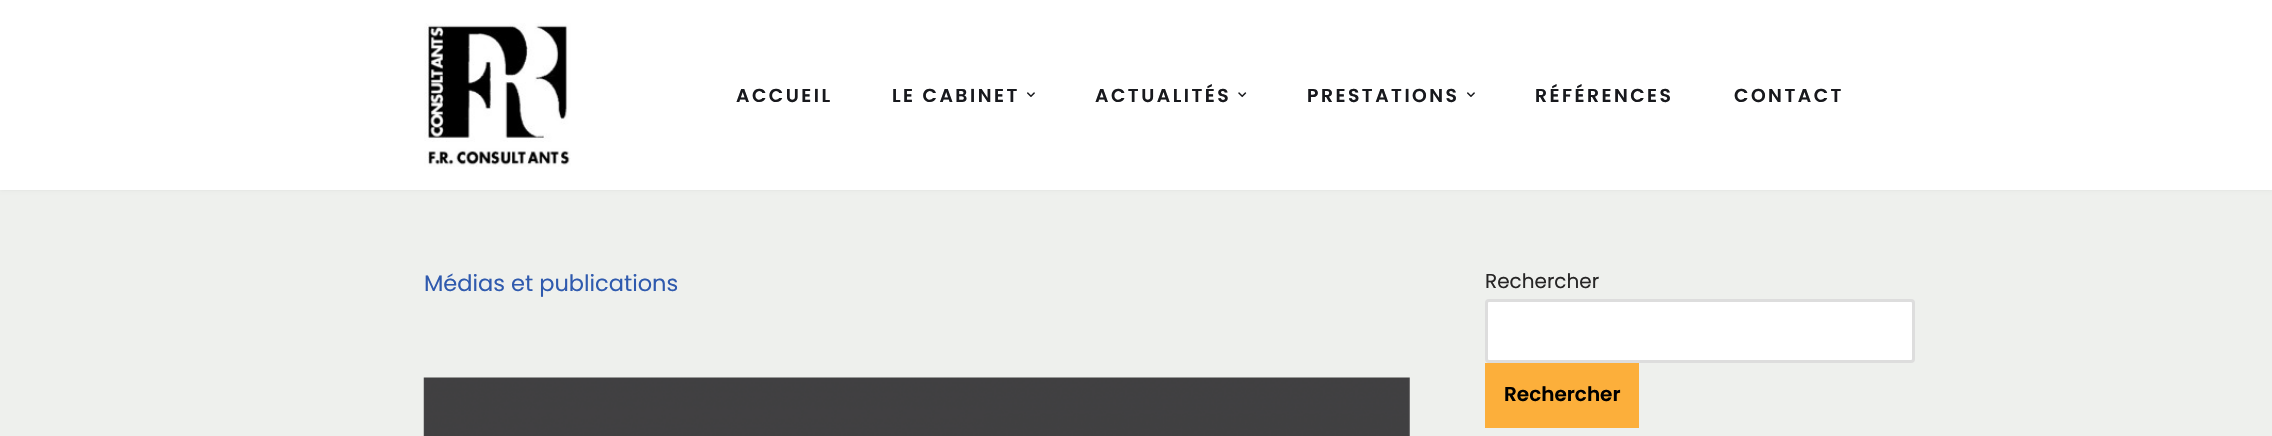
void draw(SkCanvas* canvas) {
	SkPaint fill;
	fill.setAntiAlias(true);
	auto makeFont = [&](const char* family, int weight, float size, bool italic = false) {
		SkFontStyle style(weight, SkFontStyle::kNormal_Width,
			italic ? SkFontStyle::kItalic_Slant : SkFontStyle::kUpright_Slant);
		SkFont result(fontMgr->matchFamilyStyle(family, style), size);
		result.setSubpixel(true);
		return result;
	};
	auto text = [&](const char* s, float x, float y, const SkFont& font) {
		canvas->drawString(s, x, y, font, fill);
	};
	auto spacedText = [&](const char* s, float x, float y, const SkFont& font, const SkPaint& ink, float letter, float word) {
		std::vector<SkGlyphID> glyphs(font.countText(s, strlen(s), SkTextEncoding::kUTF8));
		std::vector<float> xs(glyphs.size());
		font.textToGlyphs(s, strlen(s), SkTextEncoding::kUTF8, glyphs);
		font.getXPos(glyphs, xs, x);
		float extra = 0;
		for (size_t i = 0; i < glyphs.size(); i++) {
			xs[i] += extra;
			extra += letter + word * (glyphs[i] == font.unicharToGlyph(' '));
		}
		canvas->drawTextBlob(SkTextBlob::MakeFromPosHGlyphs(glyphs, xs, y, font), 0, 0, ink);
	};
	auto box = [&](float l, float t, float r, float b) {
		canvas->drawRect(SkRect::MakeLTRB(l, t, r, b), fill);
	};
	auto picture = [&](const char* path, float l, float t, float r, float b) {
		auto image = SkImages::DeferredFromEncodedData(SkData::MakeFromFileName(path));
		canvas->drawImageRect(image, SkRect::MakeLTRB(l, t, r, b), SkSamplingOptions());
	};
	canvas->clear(0xFFEEF0ED);
	fill.setColor(0x1A000000);
	fill.setMaskFilter(SkMaskFilter::MakeBlur(kNormal_SkBlurStyle, 2));
	canvas->drawRect(SkRect::MakeLTRB(0, -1, 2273, 189), fill);
	fill.setMaskFilter(nullptr);
	fill.setColor(0xFFFFFFFF);
	box(0, 0, 2272, 190);
	picture("image0.png", 424, 23, 571, 167);
	picture("image1.png", 1027, 92, 1035, 97);
	picture("image2.png", 1238, 92, 1247, 98);
	picture("image1.png", 1467, 92, 1475, 97);
	picture("image3.png", 423, 377, 1410, 436);
	canvas->drawRoundRect(SkRect::MakeLTRB(1486.5f, 300.5f, 1913.5f, 361.5f), 2.5f, 2.5f, fill);
	fill.setStyle(SkPaint::kStroke_Style);
	fill.setStrokeWidth(3);
	fill.setColor(0xFFDDDDDD);
	canvas->drawRoundRect(SkRect::MakeLTRB(1486.5f, 300.5f, 1913.5f, 361.5f), 2.5f, 2.5f, fill);
	fill.setStyle(SkPaint::kFill_Style);
	fill.setColor(0xFFFCAF3B);
	box(1485, 363, 1639, 428);
	auto font1 = makeFont("Poppins", 600, 18.75f);
	fill.setColor(0xFF18191D);
	spacedText("ACCUEIL", 736, 102, font1, fill, 2.5f, 0);
	spacedText("LE CABINET", 892, 102, font1, fill, 2.5f, 0);
	spacedText("ACTUALITÉS", 1095, 102, font1, fill, 2.5f, 0);
	spacedText("PRESTATIONS", 1307, 102, font1, fill, 2.5f, 0);
	spacedText("RÉFÉRENCES", 1535, 102, font1, fill, 2.5f, 0);
	spacedText("CONTACT", 1734, 102, font1, fill, 2.5f, 0);
	auto font2 = makeFont("Poppins", 400, 22.5f);
	fill.setColor(0xFF2F5AAE);
	text("Médias et publications", 424, 291, font2);
	auto font3 = makeFont("Poppins", 400, 20);
	fill.setColor(0xFF272626);
	text("Rechercher", 1485, 288, font3);
	auto font4 = makeFont("Poppins", 600, 20);
	fill.setColor(0xFF000000);
	text("Rechercher", 1504, 401, font4);
}
